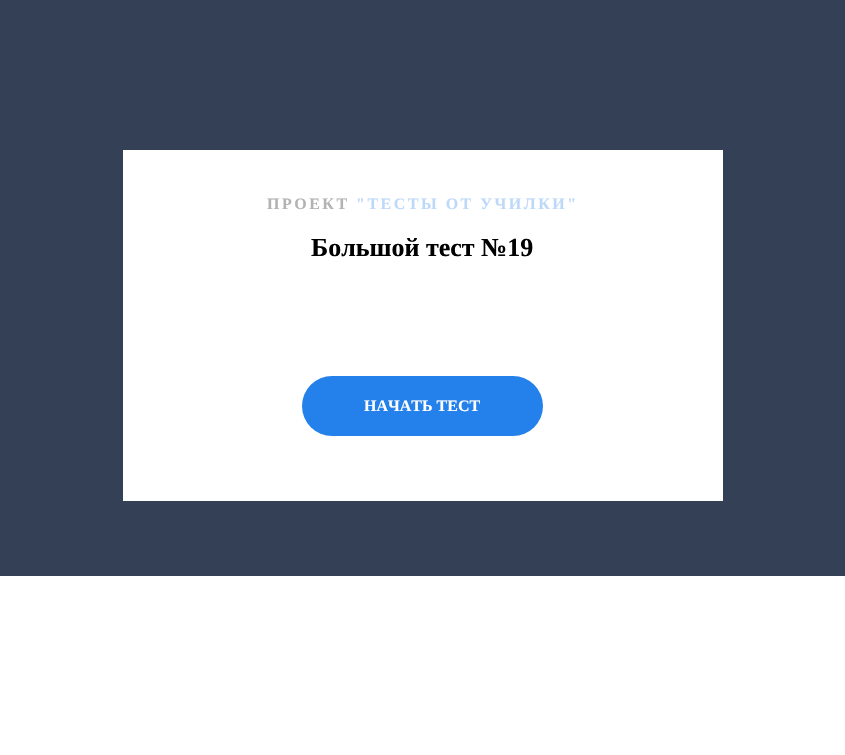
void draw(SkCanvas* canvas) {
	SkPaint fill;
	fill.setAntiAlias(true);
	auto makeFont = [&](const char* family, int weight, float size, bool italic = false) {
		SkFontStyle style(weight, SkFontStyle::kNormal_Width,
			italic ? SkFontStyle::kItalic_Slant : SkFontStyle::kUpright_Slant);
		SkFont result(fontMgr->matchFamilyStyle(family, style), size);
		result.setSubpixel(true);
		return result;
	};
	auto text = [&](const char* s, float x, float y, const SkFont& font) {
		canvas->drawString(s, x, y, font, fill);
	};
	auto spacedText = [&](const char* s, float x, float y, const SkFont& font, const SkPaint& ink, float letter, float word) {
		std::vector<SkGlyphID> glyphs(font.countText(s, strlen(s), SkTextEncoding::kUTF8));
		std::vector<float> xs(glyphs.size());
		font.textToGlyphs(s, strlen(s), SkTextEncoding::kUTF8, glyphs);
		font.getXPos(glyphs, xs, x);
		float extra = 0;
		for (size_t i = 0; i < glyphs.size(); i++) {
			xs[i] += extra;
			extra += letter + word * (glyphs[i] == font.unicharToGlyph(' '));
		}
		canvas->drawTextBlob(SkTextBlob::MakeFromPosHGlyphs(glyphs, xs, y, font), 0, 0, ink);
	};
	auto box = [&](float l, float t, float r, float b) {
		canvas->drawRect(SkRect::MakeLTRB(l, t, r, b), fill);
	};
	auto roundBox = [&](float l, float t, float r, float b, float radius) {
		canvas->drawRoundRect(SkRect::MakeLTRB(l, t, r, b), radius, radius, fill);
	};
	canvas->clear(0xFFFFFFFF);
	fill.setColor(0xFF344055);
	box(0, 0, 845, 576);
	fill.setColor(0xFFFFFFFF);
	box(123, 150, 723, 501);
	fill.setColor(0xFF2481EB);
	roundBox(302, 376, 543, 436, 30);
	auto font1 = makeFont("Liberation Serif", 700, 16);
	fill.setColor(0xFFB3B3B3);
	spacedText("ПРОЕКТ", 267, 209, font1, fill, 2.5f, 0);
	fill.setColor(0xFFBDD9F9);
	spacedText("\"ТЕСТЫ ОТ УЧИЛКИ\"", 356, 209, font1, fill, 2.5f, 0);
	auto font2 = makeFont("Liberation Serif", 700, 26);
	fill.setColor(0xFF000000);
	text("Большой тест №19", 311, 256, font2);
	fill.setColor(0xFFFFFFFF);
	text("НАЧАТЬ ТЕСТ", 364, 411, font1);
}
